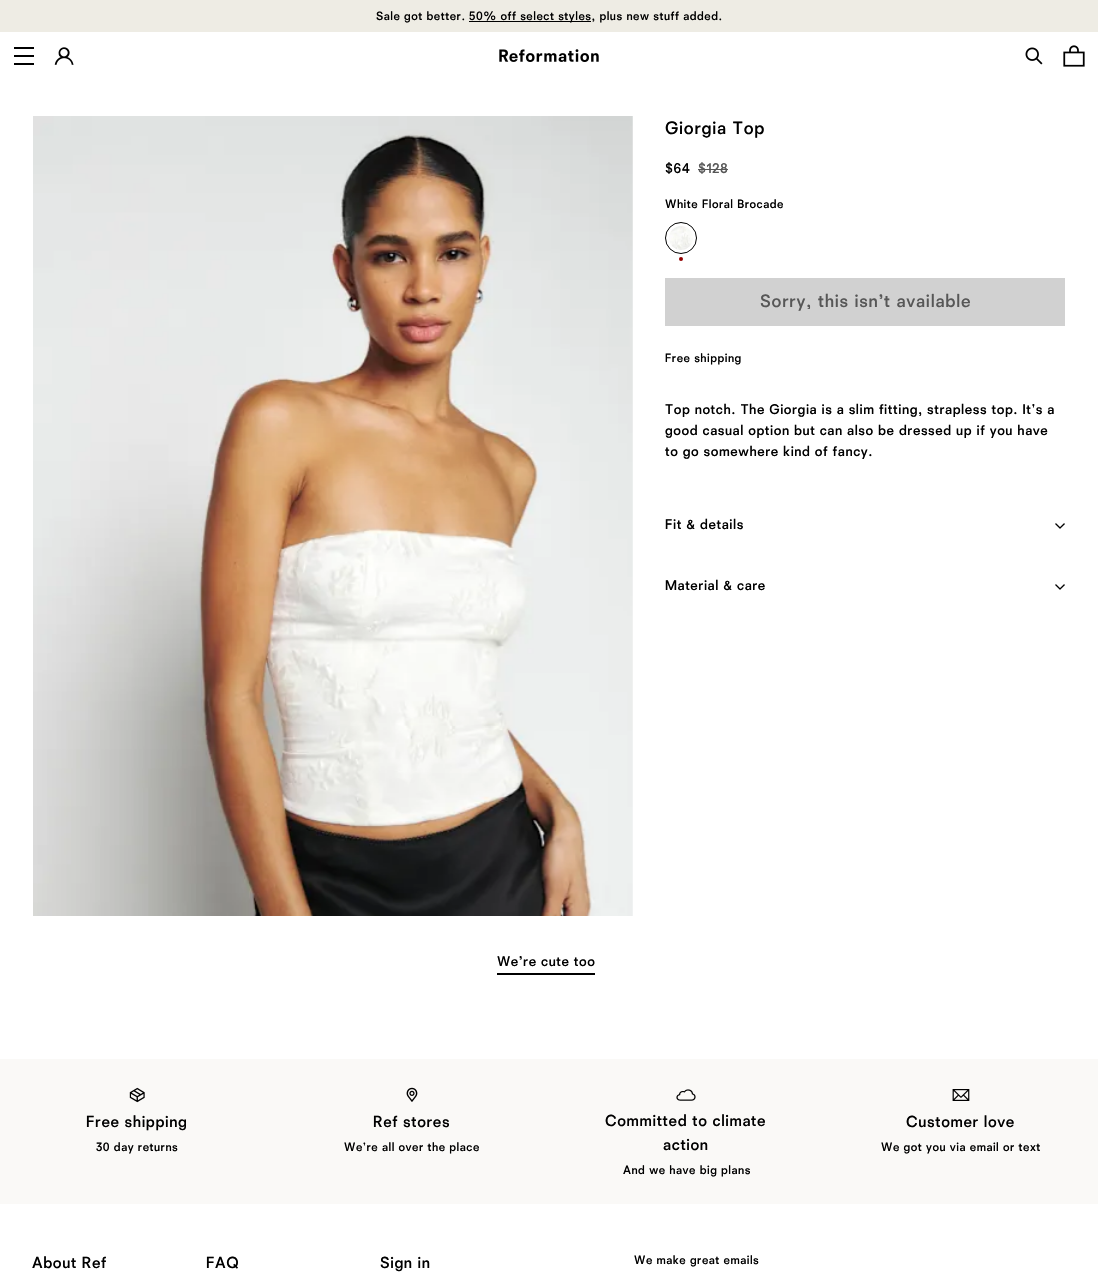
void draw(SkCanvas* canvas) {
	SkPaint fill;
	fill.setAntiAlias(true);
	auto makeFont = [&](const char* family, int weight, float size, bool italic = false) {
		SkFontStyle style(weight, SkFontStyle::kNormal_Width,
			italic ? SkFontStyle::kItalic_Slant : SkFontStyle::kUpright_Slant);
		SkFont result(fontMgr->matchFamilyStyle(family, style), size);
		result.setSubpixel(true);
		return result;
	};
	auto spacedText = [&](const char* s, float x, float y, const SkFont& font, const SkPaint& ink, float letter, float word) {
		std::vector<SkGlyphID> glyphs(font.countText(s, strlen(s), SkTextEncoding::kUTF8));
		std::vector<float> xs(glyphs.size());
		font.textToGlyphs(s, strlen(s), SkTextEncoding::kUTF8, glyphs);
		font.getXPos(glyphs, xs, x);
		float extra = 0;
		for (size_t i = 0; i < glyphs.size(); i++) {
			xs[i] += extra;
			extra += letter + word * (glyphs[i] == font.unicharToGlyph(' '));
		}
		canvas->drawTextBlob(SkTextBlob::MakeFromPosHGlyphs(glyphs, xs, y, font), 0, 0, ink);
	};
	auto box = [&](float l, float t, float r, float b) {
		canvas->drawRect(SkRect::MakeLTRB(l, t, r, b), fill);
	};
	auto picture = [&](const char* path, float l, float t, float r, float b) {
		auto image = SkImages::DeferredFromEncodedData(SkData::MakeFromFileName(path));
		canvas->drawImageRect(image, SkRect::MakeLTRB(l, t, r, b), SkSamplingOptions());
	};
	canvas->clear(0xFFFFFFFF);
	fill.setColor(0xFFEEECE4);
	box(0, 0, 1098, 32);
	fill.setColor(0xFF000000);
	box(469, 21, 591, 22);
	box(14, 47, 34, 49);
	box(14, 55, 34, 57);
	box(14, 63, 34, 65);
	picture("image0.png", 54, 47, 74, 65);
	picture("image1.png", 499, 49, 599, 62);
	picture("image2.png", 1025, 47, 1043, 65);
	picture("image3.png", 1063, 45, 1085, 67);
	picture("image4.png", 33, 116, 633, 916);
	fill.setColor(0xFF575757);
	box(698, 169, 728, 170);
	picture("image5.png", 669, 226, 693, 250);
	fill.setStyle(SkPaint::kStroke_Style);
	fill.setStrokeWidth(1);
	fill.setColor(0xFF000000);
	canvas->drawCircle(681, 238, 15.5f, fill);
	fill.setStyle(SkPaint::kFill_Style);
	fill.setColor(0xFF930000);
	canvas->drawCircle(681, 259, 2, fill);
	fill.setColor(0xFFD1D1D1);
	box(665, 278, 1065, 326);
	picture("image6.png", 1055, 523, 1065, 529);
	picture("image6.png", 1055, 584, 1065, 590);
	fill.setColor(0xFF000000);
	box(497, 973, 595, 975);
	fill.setColor(0xFFFAF9F7);
	box(0, 1059, 1098, 1204);
	picture("image7.png", 129, 1087, 145, 1103);
	picture("image8.png", 406, 1087, 418, 1102);
	picture("image9.png", 676, 1089, 696, 1101);
	picture("image10.png", 952, 1089, 970, 1101);
	auto font1 = makeFont("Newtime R", 500, 12);
	fill.setColor(0xFF000000);
	spacedText("Sale got better.", 376, 20, font1, fill, 0.5f, 0);
	spacedText("50% off select styles, plus new stuff added.", 469, 20, font1, fill, 0.5f, 0);
	auto font2 = makeFont("Newtime R", 500, 18);
	spacedText("Giorgia Top", 665, 134, font2, fill, 0.75f, 0);
	auto font3 = makeFont("Newtime R", 500, 14);
	spacedText("$64", 665, 173, font3, fill, 0.55f, 0);
	fill.setColor(0xFF575757);
	spacedText("$128", 698, 173, font3, fill, 0.55f, 0);
	fill.setColor(0xFF000000);
	spacedText("White Floral Brocade", 665, 208, font1, fill, 0.5f, 0);
	fill.setColor(0xFF575757);
	spacedText("Sorry, this isn’t available", 760, 307, font2, fill, 0.75f, 0);
	fill.setColor(0xFF000000);
	spacedText("Free shipping", 665, 362, font1, fill, 0.5f, 0);
	spacedText("Top notch. The Giorgia is a slim fitting, strapless top. It's a", 665, 414, font3, fill, 0.55f, 0);
	spacedText("good casual option but can also be dressed up if you have", 665, 435, font3, fill, 0.55f, 0);
	spacedText("to go somewhere kind of fancy.", 665, 456, font3, fill, 0.55f, 0);
	spacedText("Fit & details", 665, 529, font3, fill, 0.55f, 0);
	spacedText("Material & care", 665, 590, font3, fill, 0.55f, 0);
	spacedText("We’re cute too", 497, 966, font3, fill, 0.55f, 0);
	auto font4 = makeFont("Newtime R", 500, 16);
	spacedText("Free shipping", 86, 1127, font4, fill, 0.6f, 0);
	spacedText("30 day returns", 96, 1151, font1, fill, 0.5f, 0);
	spacedText("Ref stores", 373, 1127, font4, fill, 0.6f, 0);
	spacedText("We're all over the place", 344, 1151, font1, fill, 0.5f, 0);
	spacedText("Committed to climate", 605, 1126, font4, fill, 0.6f, 0);
	spacedText("action", 663, 1150, font4, fill, 0.6f, 0);
	spacedText("And we have big plans", 623, 1174, font1, fill, 0.5f, 0);
	spacedText("Customer love", 906, 1127, font4, fill, 0.6f, 0);
	spacedText("We got you via email or text", 881, 1151, font1, fill, 0.5f, 0);
	spacedText("About Ref", 32, 1268, font4, fill, 0.6f, 0);
	spacedText("FAQ", 206, 1268, font4, fill, 0.6f, 0);
	spacedText("Sign in", 380, 1268, font4, fill, 0.6f, 0);
	spacedText("We make great emails", 634, 1264, font1, fill, 0.5f, 0);
}
